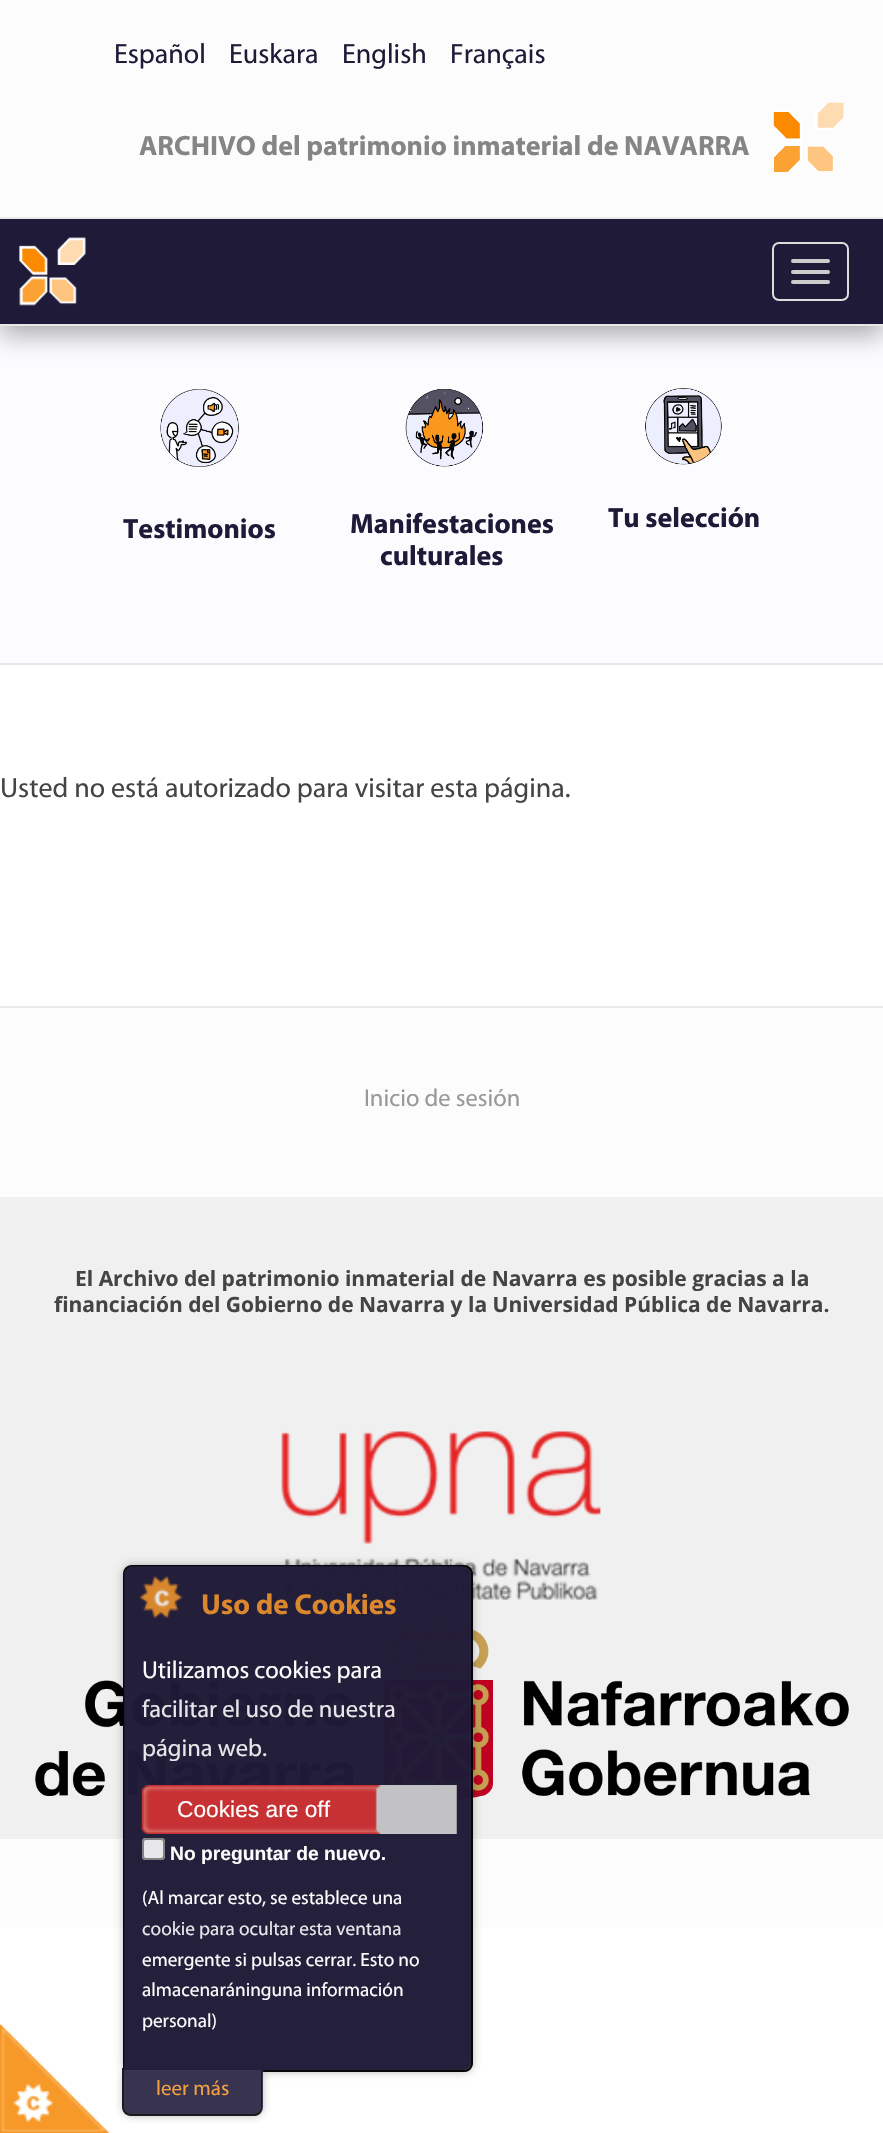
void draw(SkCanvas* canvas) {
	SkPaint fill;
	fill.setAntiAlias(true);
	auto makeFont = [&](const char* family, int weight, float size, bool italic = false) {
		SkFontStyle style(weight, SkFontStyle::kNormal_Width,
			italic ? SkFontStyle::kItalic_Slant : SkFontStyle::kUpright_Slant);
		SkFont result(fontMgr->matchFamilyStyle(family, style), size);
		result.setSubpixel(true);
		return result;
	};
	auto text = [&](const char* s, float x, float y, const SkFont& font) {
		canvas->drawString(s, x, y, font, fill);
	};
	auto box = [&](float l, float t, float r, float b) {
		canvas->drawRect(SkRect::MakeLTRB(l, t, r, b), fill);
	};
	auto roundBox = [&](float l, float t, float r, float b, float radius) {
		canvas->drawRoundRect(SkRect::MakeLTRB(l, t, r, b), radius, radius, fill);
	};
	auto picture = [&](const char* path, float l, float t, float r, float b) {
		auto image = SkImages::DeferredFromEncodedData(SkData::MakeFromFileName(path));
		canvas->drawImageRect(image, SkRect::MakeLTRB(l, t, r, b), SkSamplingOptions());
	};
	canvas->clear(0xFFFFFFFF);
	fill.setColor(0xBF323232);
	fill.setMaskFilter(SkMaskFilter::MakeBlur(kNormal_SkBlurStyle, 13));
	canvas->drawRect(SkRect::MakeLTRB(0, 228, 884, 334), fill);
	fill.setMaskFilter(nullptr);
	fill.setColor(0xFFFCFCFC);
	box(0, 0, 883, 217);
	fill.setColor(0xFFEAEAEA);
	box(0, 217, 883, 219);
	picture("image0.png", 773, 102, 844, 172);
	fill.setColor(0xFF201A39);
	box(0, 219, 883, 324);
	fill.setColor(0xFFE7E7E7);
	box(0, 324, 883, 326);
	picture("image1.png", 19, 237, 86, 306);
	fill.setStyle(SkPaint::kStroke_Style);
	fill.setStrokeWidth(2);
	fill.setColor(0xFFDDDDDD);
	canvas->drawRoundRect(SkRect::MakeLTRB(773, 243, 848, 300), 6, 6, fill);
	fill.setStyle(SkPaint::kFill_Style);
	fill.setColor(0xFFCCCCCC);
	roundBox(791, 259, 830, 263, 2);
	roundBox(791, 270, 830, 274, 2);
	roundBox(791, 280, 830, 284, 2);
	fill.setColor(0x6BF7F7FF);
	box(0, 326, 883, 663);
	fill.setColor(0xFFE7E7E7);
	box(0, 663, 883, 665);
	picture("image2.png", 160, 389, 239, 467);
	picture("image3.png", 405, 388, 484, 467);
	picture("image4.png", 645, 388, 722, 465);
	fill.setColor(0xFFFCFCFC);
	box(0, 1008, 883, 1927);
	fill.setColor(0xFFEAEAEA);
	box(0, 1006, 883, 1008);
	fill.setColor(0xFFF0F0F0);
	box(0, 1197, 883, 1839);
	picture("image5.png", 281, 1431, 601, 1600);
	picture("image6.png", 35, 1615, 849, 1805);
	picture("image7.png", 0, 2024, 109, 2133);
	canvas->save();
	canvas->clipPath(SkPathBuilder(SkPathFillType::kEvenOdd).moveTo(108, 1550).lineTo(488, 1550).lineTo(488, 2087).lineTo(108, 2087).close().moveTo(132, 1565).lineTo(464, 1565).cubicTo(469, 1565, 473, 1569, 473, 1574).lineTo(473, 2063).cubicTo(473, 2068, 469, 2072, 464, 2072).lineTo(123, 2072).lineTo(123, 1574).cubicTo(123, 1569, 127, 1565, 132, 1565).close().detach(), true);
	fill.setColor(0x45000000);
	fill.setMaskFilter(SkMaskFilter::MakeBlur(kNormal_SkBlurStyle, 4.5f));
	canvas->drawRoundRect(SkRect::MakeLTRB(123, 1565, 473, 2072), 9, 9, fill);
	fill.setMaskFilter(nullptr);
	canvas->restore();
	fill.setColor(0xCC141414);
	canvas->drawPath(SkPathBuilder().moveTo(132, 1565).lineTo(464, 1565).cubicTo(469, 1565, 473, 1569, 473, 1574).lineTo(473, 2063).cubicTo(473, 2068, 469, 2072, 464, 2072).lineTo(123, 2072).lineTo(123, 1574).cubicTo(123, 1569, 127, 1565, 132, 1565).close().detach(), fill);
	fill.setStyle(SkPaint::kStroke_Style);
	fill.setColor(0xE3000000);
	canvas->drawPath(SkPathBuilder().moveTo(132, 1566).lineTo(464, 1566).cubicTo(468.5f, 1566, 472, 1569.5f, 472, 1574).lineTo(472, 2063).cubicTo(472, 2067.5f, 468.5f, 2071, 464, 2071).lineTo(124, 2071).lineTo(124, 1574).cubicTo(124, 1569.5f, 127.5f, 1566, 132, 1566).close().detach(), fill);
	fill.setStyle(SkPaint::kFill_Style);
	fill.setColor(0x4D1C1C1C);
	fill.setMaskFilter(SkMaskFilter::MakeBlur(kNormal_SkBlurStyle, 4.5f));
	canvas->drawRoundRect(SkRect::MakeLTRB(123, 2069, 263, 2116), 9, 9, fill);
	fill.setMaskFilter(nullptr);
	fill.setColor(0xFF38334F);
	canvas->drawPath(SkPathBuilder().moveTo(123, 2069).lineTo(263, 2069).lineTo(263, 2107).cubicTo(263, 2112, 259, 2116, 254, 2116).lineTo(132, 2116).cubicTo(127, 2116, 123, 2112, 123, 2107).close().detach(), fill);
	fill.setColor(0xFF1C1C1C);
	canvas->drawPath(SkPathBuilder(SkPathFillType::kEvenOdd).moveTo(122, 2068).lineTo(262, 2068).lineTo(262, 2107).cubicTo(262, 2112, 259, 2116, 254, 2116).lineTo(131, 2116).cubicTo(126, 2116, 122, 2112, 122, 2107).close().moveTo(124, 2068).lineTo(261, 2068).lineTo(261, 2107).cubicTo(261, 2111, 258, 2114, 254, 2114).lineTo(131, 2114).cubicTo(127, 2114, 124, 2111, 124, 2107).close().detach(), fill);
	fill.setColor(0xE3201A39);
	canvas->drawPath(SkPathBuilder().moveTo(133, 1566).lineTo(462, 1566).cubicTo(467, 1566, 471, 1570, 471, 1575).lineTo(471, 2061).cubicTo(471, 2066, 467, 2070, 462, 2070).lineTo(124, 2070).lineTo(124, 1575).cubicTo(124, 1570, 128, 1566, 133, 1566).close().detach(), fill);
	picture("image8.png", 140, 1576, 183, 1619);
	picture("image9.png", 141, 1785, 457, 1834);
	fill.setColor(0xFFE7E6E9);
	roundBox(142, 1838, 165, 1860, 4);
	fill.setStyle(SkPaint::kStroke_Style);
	fill.setColor(0xE3767676);
	canvas->drawRoundRect(SkRect::MakeLTRB(143, 1839, 164, 1859), 3, 3, fill);
	auto font1 = makeFont("Myriad", 400, 28);
	fill.setStyle(SkPaint::kFill_Style);
	fill.setColor(0xFF201A39);
	text("Español", 114, 63, font1);
	text("Euskara", 229, 63, font1);
	text("English", 342, 63, font1);
	text("Français", 450, 63, font1);
	auto font2 = makeFont("Myriad", 700, 28);
	fill.setColor(0xFF858585);
	text("ARCHIVO del patrimonio inmaterial de NAVARRA", 139, 155, font2);
	fill.setColor(0xFF201A39);
	text("Testimonios", 123, 538, font2);
	text("Manifestaciones", 350, 533, font2);
	text("culturales", 380, 565, font2);
	text("Tu selección", 608, 527, font2);
	fill.setColor(0xFF444444);
	text("Usted no está autorizado para visitar esta página.", 0, 797, font1);
	auto font3 = makeFont("Myriad", 400, 24.5f);
	fill.setColor(0xFF999999);
	text("Inicio de sesión", 364, 1106, font3);
	auto font4 = makeFont("Open Sans", 700, 21);
	fill.setColor(0xFF444444);
	text("El Archivo del patrimonio inmaterial de Navarra es posible gracias a la", 75, 1286, font4);
	text("financiación del Gobierno de Navarra y la Universidad Pública de Navarra.", 54, 1312, font4);
	auto font5 = makeFont("Myriad", 700, 29);
	fill.setColor(0xFFDA872D);
	text("Uso de Cookies", 201, 1614, font5);
	fill.setColor(0xFFFDFDFD);
	text("Utilizamos cookies para", 142, 1678, font3);
	fill.setColor(0xFFE7E6E9);
	text("facilitar el uso de nuestra", 142, 1717, font3);
	text("página web.", 142, 1756, font3);
	auto font6 = makeFont("Liberation Sans", 400, 22.75f);
	fill.setColor(0xFFFDFDFD);
	text("Cookies are off", 177, 1817, font6);
	auto font7 = makeFont("Liberation Sans", 700, 19.25f);
	text("No preguntar de nuevo.", 170, 1860, font7);
	auto font8 = makeFont("Myriad", 400, 19.25f);
	text("(Al marcar esto, se establece una", 142, 1904, font8);
	fill.setColor(0xFFE7E6E9);
	text("cookie para ocultar esta ventana", 142, 1935, font8);
	fill.setColor(0xFFFDFDFD);
	text("emergente si pulsas cerrar. Esto no", 142, 1966, font8);
	text("almacenaráninguna información", 142, 1996, font8);
	text("personal)", 142, 2027, font8);
	auto font9 = makeFont("Myriad", 400, 21);
	fill.setColor(0xFFF2A042);
	text("leer más", 156, 2095, font9);
}
